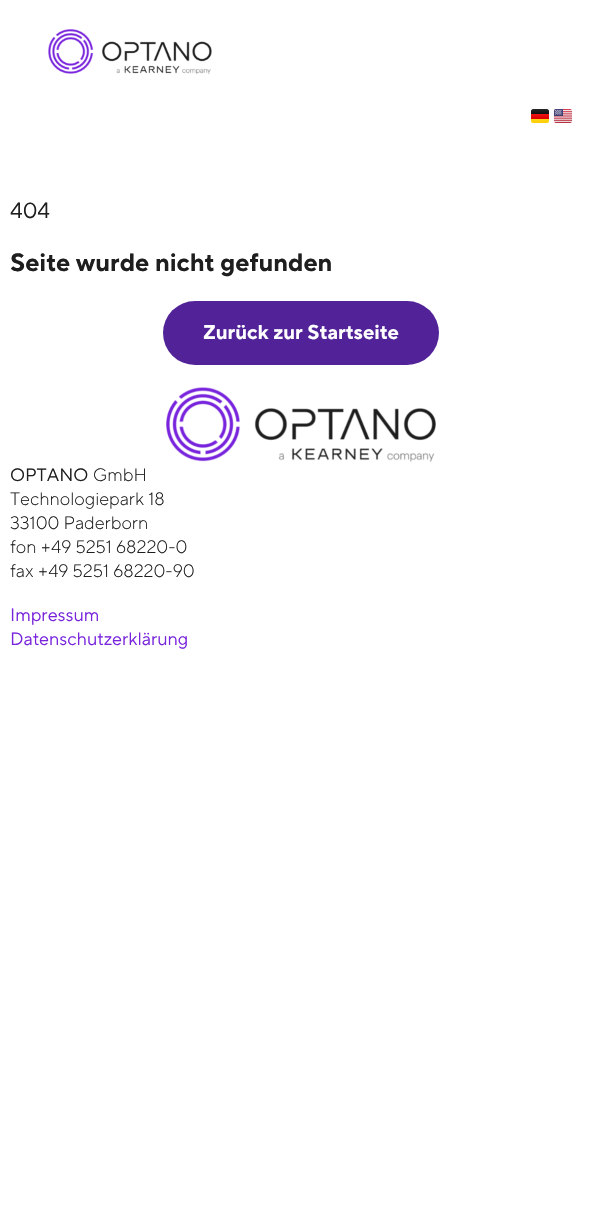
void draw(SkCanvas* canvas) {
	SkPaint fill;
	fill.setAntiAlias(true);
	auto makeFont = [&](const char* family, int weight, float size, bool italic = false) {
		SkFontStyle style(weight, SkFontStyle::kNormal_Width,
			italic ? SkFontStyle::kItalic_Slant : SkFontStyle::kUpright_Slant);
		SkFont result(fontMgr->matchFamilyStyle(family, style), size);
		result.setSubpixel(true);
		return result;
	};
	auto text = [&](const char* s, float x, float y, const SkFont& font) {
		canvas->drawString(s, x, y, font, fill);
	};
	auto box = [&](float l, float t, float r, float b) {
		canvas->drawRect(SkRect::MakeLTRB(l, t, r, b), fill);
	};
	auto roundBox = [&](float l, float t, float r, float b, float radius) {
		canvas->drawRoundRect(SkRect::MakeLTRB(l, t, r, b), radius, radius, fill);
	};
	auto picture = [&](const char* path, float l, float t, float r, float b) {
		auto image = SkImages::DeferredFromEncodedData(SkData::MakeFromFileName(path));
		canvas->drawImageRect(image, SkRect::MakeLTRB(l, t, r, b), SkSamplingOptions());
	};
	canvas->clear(0xFFFFFFFF);
	picture("image0.png", 48, 29, 212, 74);
	{
		const SkColor colors[] = {0xFF262626, 0xFF0D0D0D};
		const float stops[] = {0, 1};
		const SkPoint ends[] = {{540, 109}, {540, 114}};
		fill.setShader(SkGradientShader::MakeLinear(ends, colors, stops, 2, SkTileMode::kClamp));
		fill.setAlpha(255);
	}
	canvas->drawPath(SkPathBuilder().moveTo(533, 109).lineTo(547, 109).cubicTo(548, 109, 549, 110, 549, 111).lineTo(549, 114).lineTo(531, 114).lineTo(531, 111).cubicTo(531, 110, 532, 109, 533, 109).close().detach(), fill);
	{
		const SkColor colors[] = {0xFFF01515, 0xFFDE0000};
		const float stops[] = {0, 1};
		const SkPoint ends[] = {{540, 114}, {540, 118}};
		fill.setShader(SkGradientShader::MakeLinear(ends, colors, stops, 2, SkTileMode::kClamp));
		fill.setAlpha(255);
	}
	box(531, 114, 549, 119);
	{
		const SkColor colors[] = {0xFFFFD521, 0xFFFFCF00};
		const float stops[] = {0, 1};
		const SkPoint ends[] = {{540, 118}, {540, 123}};
		fill.setShader(SkGradientShader::MakeLinear(ends, colors, stops, 2, SkTileMode::kClamp));
		fill.setAlpha(255);
	}
	canvas->drawPath(SkPathBuilder().moveTo(531, 119).lineTo(549, 119).lineTo(549, 121).cubicTo(549, 122, 548, 123, 547, 123).lineTo(533, 123).cubicTo(532, 123, 531, 122, 531, 121).close().detach(), fill);
	picture("image1.png", 554, 109, 572, 123);
	fill.setShader(nullptr);
	fill.setColor(0xFF522398);
	roundBox(163, 301, 439, 365, 32);
	picture("image2.png", 166, 387, 436, 462);
	auto font1 = makeFont("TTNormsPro", 400, 22);
	fill.setColor(0xFF1E1E1E);
	text("404", 10, 218, font1);
	auto font2 = makeFont("TTNormsPro", 700, 25);
	text("Seite wurde nicht gefunden", 10, 271, font2);
	auto font3 = makeFont("TTNormsPro", 700, 20);
	fill.setColor(0xFFFFFFFF);
	text("Zurück zur Startseite", 203, 339, font3);
	auto font4 = makeFont("TTNormsPro", 400, 18);
	fill.setColor(0xFF1E1E1E);
	text("OPTANO", 10, 481, font4);
	auto font5 = makeFont("TTNormsPro", 300, 18);
	text("GmbH", 93, 481, font5);
	text("Technologiepark 18", 10, 505, font5);
	text("33100 Paderborn", 10, 529, font5);
	text("fon +49 5251 68220-0", 10, 553, font5);
	text("fax +49 5251 68220-90", 10, 577, font5);
	fill.setColor(0xFF7823DC);
	text("Impressum", 10, 621, font4);
	text("Datenschutzerklärung", 10, 645, font4);
}
